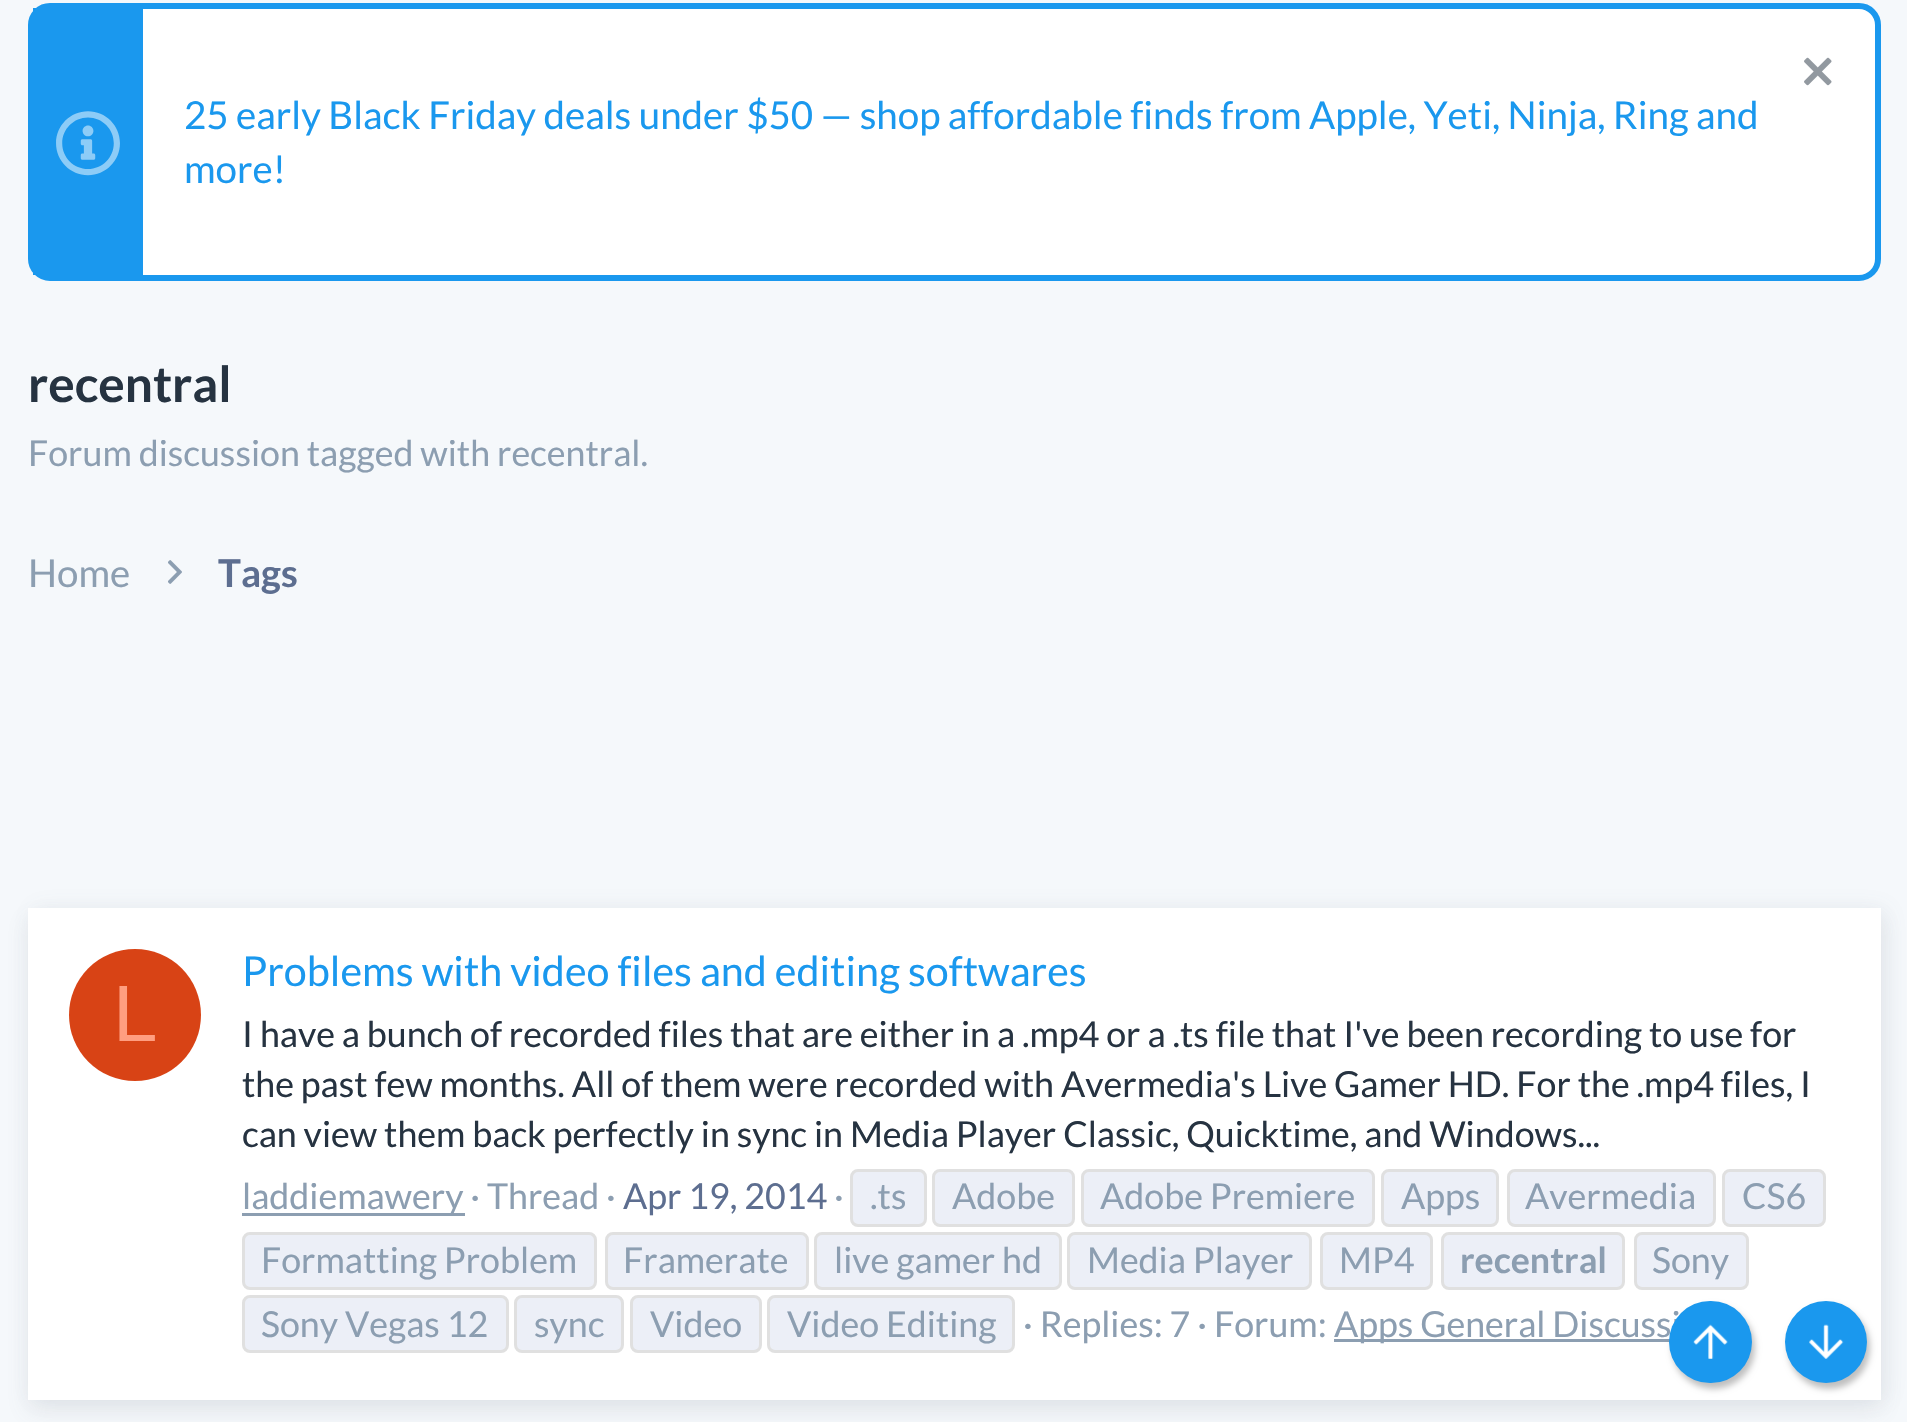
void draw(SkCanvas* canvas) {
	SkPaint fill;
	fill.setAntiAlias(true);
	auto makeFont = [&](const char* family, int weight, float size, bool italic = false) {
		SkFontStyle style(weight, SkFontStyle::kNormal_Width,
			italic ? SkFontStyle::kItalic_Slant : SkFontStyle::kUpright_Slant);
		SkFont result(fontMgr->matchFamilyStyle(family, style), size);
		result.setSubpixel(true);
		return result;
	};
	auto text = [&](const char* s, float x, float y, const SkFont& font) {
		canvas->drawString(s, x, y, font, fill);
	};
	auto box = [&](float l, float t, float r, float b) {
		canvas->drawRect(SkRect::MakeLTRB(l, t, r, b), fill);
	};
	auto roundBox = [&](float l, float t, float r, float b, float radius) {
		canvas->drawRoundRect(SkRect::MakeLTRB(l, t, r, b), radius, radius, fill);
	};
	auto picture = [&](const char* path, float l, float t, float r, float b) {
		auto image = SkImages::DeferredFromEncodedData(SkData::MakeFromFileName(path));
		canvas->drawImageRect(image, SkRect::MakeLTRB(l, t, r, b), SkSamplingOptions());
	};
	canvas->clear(0xFFF5F8FB);
	fill.setColor(0xFFFFFFFF);
	canvas->drawRoundRect(SkRect::MakeLTRB(31, 6, 1878, 278), 19, 19, fill);
	fill.setStyle(SkPaint::kStroke_Style);
	fill.setStrokeWidth(6);
	fill.setColor(0xFF1A98EE);
	canvas->drawRoundRect(SkRect::MakeLTRB(31, 6, 1878, 278), 19, 19, fill);
	fill.setStyle(SkPaint::kFill_Style);
	box(33, 8, 143, 275);
	picture("image0.png", 56, 111, 120, 176);
	picture("image1.png", 1804, 57, 1832, 86);
	picture("image2.png", 168, 560, 182, 584);
	fill.setColor(0x14677685);
	fill.setMaskFilter(SkMaskFilter::MakeBlur(kNormal_SkBlurStyle, 11));
	canvas->drawRect(SkRect::MakeLTRB(33, 908, 1887, 1400), fill);
	fill.setMaskFilter(nullptr);
	fill.setColor(0x1F677685);
	fill.setMaskFilter(SkMaskFilter::MakeBlur(kNormal_SkBlurStyle, 11));
	canvas->drawRect(SkRect::MakeLTRB(28, 919, 1881, 1411), fill);
	fill.setMaskFilter(nullptr);
	fill.setColor(0xFFFFFFFF);
	box(28, 908, 1881, 1400);
	fill.setColor(0xFFD84315);
	canvas->drawCircle(135, 1015, 66, fill);
	fill.setColor(0xFF8C9EB1);
	box(242, 1213, 465, 1216);
	fill.setColor(0xFFECEFF7);
	canvas->drawRoundRect(SkRect::MakeLTRB(851.5f, 1170.5f, 925.5f, 1225.5f), 6.5f, 6.5f, fill);
	fill.setStyle(SkPaint::kStroke_Style);
	fill.setStrokeWidth(3);
	fill.setColor(0xFFE0E0E0);
	canvas->drawRoundRect(SkRect::MakeLTRB(851.5f, 1170.5f, 925.5f, 1225.5f), 6.5f, 6.5f, fill);
	fill.setStyle(SkPaint::kFill_Style);
	fill.setColor(0xFFECEFF7);
	canvas->drawRoundRect(SkRect::MakeLTRB(933.5f, 1170.5f, 1073.5f, 1225.5f), 6.5f, 6.5f, fill);
	fill.setStyle(SkPaint::kStroke_Style);
	fill.setColor(0xFFE0E0E0);
	canvas->drawRoundRect(SkRect::MakeLTRB(933.5f, 1170.5f, 1073.5f, 1225.5f), 6.5f, 6.5f, fill);
	fill.setStyle(SkPaint::kFill_Style);
	fill.setColor(0xFFECEFF7);
	canvas->drawRoundRect(SkRect::MakeLTRB(1082.5f, 1170.5f, 1373.5f, 1225.5f), 6.5f, 6.5f, fill);
	fill.setStyle(SkPaint::kStroke_Style);
	fill.setColor(0xFFE0E0E0);
	canvas->drawRoundRect(SkRect::MakeLTRB(1082.5f, 1170.5f, 1373.5f, 1225.5f), 6.5f, 6.5f, fill);
	fill.setStyle(SkPaint::kFill_Style);
	fill.setColor(0xFFECEFF7);
	canvas->drawRoundRect(SkRect::MakeLTRB(1382.5f, 1170.5f, 1497.5f, 1225.5f), 6.5f, 6.5f, fill);
	fill.setStyle(SkPaint::kStroke_Style);
	fill.setColor(0xFFE0E0E0);
	canvas->drawRoundRect(SkRect::MakeLTRB(1382.5f, 1170.5f, 1497.5f, 1225.5f), 6.5f, 6.5f, fill);
	fill.setStyle(SkPaint::kFill_Style);
	fill.setColor(0xFFECEFF7);
	canvas->drawRoundRect(SkRect::MakeLTRB(1508.5f, 1170.5f, 1714.5f, 1225.5f), 6.5f, 6.5f, fill);
	fill.setStyle(SkPaint::kStroke_Style);
	fill.setColor(0xFFE0E0E0);
	canvas->drawRoundRect(SkRect::MakeLTRB(1508.5f, 1170.5f, 1714.5f, 1225.5f), 6.5f, 6.5f, fill);
	fill.setStyle(SkPaint::kFill_Style);
	fill.setColor(0xFFECEFF7);
	canvas->drawRoundRect(SkRect::MakeLTRB(1723.5f, 1170.5f, 1824.5f, 1225.5f), 6.5f, 6.5f, fill);
	fill.setStyle(SkPaint::kStroke_Style);
	fill.setColor(0xFFE0E0E0);
	canvas->drawRoundRect(SkRect::MakeLTRB(1723.5f, 1170.5f, 1824.5f, 1225.5f), 6.5f, 6.5f, fill);
	fill.setStyle(SkPaint::kFill_Style);
	fill.setColor(0xFFECEFF7);
	canvas->drawRoundRect(SkRect::MakeLTRB(243.5f, 1233.5f, 595.5f, 1288.5f), 6.5f, 6.5f, fill);
	fill.setStyle(SkPaint::kStroke_Style);
	fill.setColor(0xFFE0E0E0);
	canvas->drawRoundRect(SkRect::MakeLTRB(243.5f, 1233.5f, 595.5f, 1288.5f), 6.5f, 6.5f, fill);
	fill.setStyle(SkPaint::kFill_Style);
	fill.setColor(0xFFECEFF7);
	canvas->drawRoundRect(SkRect::MakeLTRB(606.5f, 1233.5f, 807.5f, 1288.5f), 6.5f, 6.5f, fill);
	fill.setStyle(SkPaint::kStroke_Style);
	fill.setColor(0xFFE0E0E0);
	canvas->drawRoundRect(SkRect::MakeLTRB(606.5f, 1233.5f, 807.5f, 1288.5f), 6.5f, 6.5f, fill);
	fill.setStyle(SkPaint::kFill_Style);
	fill.setColor(0xFFECEFF7);
	canvas->drawRoundRect(SkRect::MakeLTRB(815.5f, 1233.5f, 1060.5f, 1288.5f), 6.5f, 6.5f, fill);
	fill.setStyle(SkPaint::kStroke_Style);
	fill.setColor(0xFFE0E0E0);
	canvas->drawRoundRect(SkRect::MakeLTRB(815.5f, 1233.5f, 1060.5f, 1288.5f), 6.5f, 6.5f, fill);
	fill.setStyle(SkPaint::kFill_Style);
	fill.setColor(0xFFECEFF7);
	canvas->drawRoundRect(SkRect::MakeLTRB(1068.5f, 1233.5f, 1310.5f, 1288.5f), 6.5f, 6.5f, fill);
	fill.setStyle(SkPaint::kStroke_Style);
	fill.setColor(0xFFE0E0E0);
	canvas->drawRoundRect(SkRect::MakeLTRB(1068.5f, 1233.5f, 1310.5f, 1288.5f), 6.5f, 6.5f, fill);
	fill.setStyle(SkPaint::kFill_Style);
	fill.setColor(0xFFECEFF7);
	canvas->drawRoundRect(SkRect::MakeLTRB(1321.5f, 1233.5f, 1431.5f, 1288.5f), 6.5f, 6.5f, fill);
	fill.setStyle(SkPaint::kStroke_Style);
	fill.setColor(0xFFE0E0E0);
	canvas->drawRoundRect(SkRect::MakeLTRB(1321.5f, 1233.5f, 1431.5f, 1288.5f), 6.5f, 6.5f, fill);
	fill.setStyle(SkPaint::kFill_Style);
	fill.setColor(0xFFECEFF7);
	canvas->drawRoundRect(SkRect::MakeLTRB(1442.5f, 1233.5f, 1623.5f, 1288.5f), 6.5f, 6.5f, fill);
	fill.setStyle(SkPaint::kStroke_Style);
	fill.setColor(0xFFE0E0E0);
	canvas->drawRoundRect(SkRect::MakeLTRB(1442.5f, 1233.5f, 1623.5f, 1288.5f), 6.5f, 6.5f, fill);
	fill.setStyle(SkPaint::kFill_Style);
	fill.setColor(0xFFECEFF7);
	canvas->drawRoundRect(SkRect::MakeLTRB(1635.5f, 1233.5f, 1747.5f, 1288.5f), 6.5f, 6.5f, fill);
	fill.setStyle(SkPaint::kStroke_Style);
	fill.setColor(0xFFE0E0E0);
	canvas->drawRoundRect(SkRect::MakeLTRB(1635.5f, 1233.5f, 1747.5f, 1288.5f), 6.5f, 6.5f, fill);
	fill.setStyle(SkPaint::kFill_Style);
	fill.setColor(0xFFECEFF7);
	canvas->drawRoundRect(SkRect::MakeLTRB(243.5f, 1296.5f, 507.5f, 1351.5f), 6.5f, 6.5f, fill);
	fill.setStyle(SkPaint::kStroke_Style);
	fill.setColor(0xFFE0E0E0);
	canvas->drawRoundRect(SkRect::MakeLTRB(243.5f, 1296.5f, 507.5f, 1351.5f), 6.5f, 6.5f, fill);
	fill.setStyle(SkPaint::kFill_Style);
	fill.setColor(0xFFECEFF7);
	canvas->drawRoundRect(SkRect::MakeLTRB(515.5f, 1296.5f, 622.5f, 1351.5f), 6.5f, 6.5f, fill);
	fill.setStyle(SkPaint::kStroke_Style);
	fill.setColor(0xFFE0E0E0);
	canvas->drawRoundRect(SkRect::MakeLTRB(515.5f, 1296.5f, 622.5f, 1351.5f), 6.5f, 6.5f, fill);
	fill.setStyle(SkPaint::kFill_Style);
	fill.setColor(0xFFECEFF7);
	canvas->drawRoundRect(SkRect::MakeLTRB(631.5f, 1296.5f, 760.5f, 1351.5f), 6.5f, 6.5f, fill);
	fill.setStyle(SkPaint::kStroke_Style);
	fill.setColor(0xFFE0E0E0);
	canvas->drawRoundRect(SkRect::MakeLTRB(631.5f, 1296.5f, 760.5f, 1351.5f), 6.5f, 6.5f, fill);
	fill.setStyle(SkPaint::kFill_Style);
	fill.setColor(0xFFECEFF7);
	canvas->drawRoundRect(SkRect::MakeLTRB(768.5f, 1296.5f, 1013.5f, 1351.5f), 6.5f, 6.5f, fill);
	fill.setStyle(SkPaint::kStroke_Style);
	fill.setColor(0xFFE0E0E0);
	canvas->drawRoundRect(SkRect::MakeLTRB(768.5f, 1296.5f, 1013.5f, 1351.5f), 6.5f, 6.5f, fill);
	fill.setStyle(SkPaint::kFill_Style);
	fill.setColor(0xFF8C9EB1);
	box(1334, 1339, 1670, 1342);
	fill.setColor(0x40000000);
	fill.setMaskFilter(SkMaskFilter::MakeBlur(kNormal_SkBlurStyle, 3));
	canvas->drawRoundRect(SkRect::MakeLTRB(1672, 1306, 1755, 1389), 41.5f, 41.5f, fill);
	fill.setMaskFilter(nullptr);
	fill.setMaskFilter(SkMaskFilter::MakeBlur(kNormal_SkBlurStyle, 3));
	canvas->drawRoundRect(SkRect::MakeLTRB(1788, 1306, 1870, 1389), 41, 41, fill);
	fill.setMaskFilter(nullptr);
	fill.setColor(0xFF1A98EE);
	canvas->drawCircle(1826, 1342, 41, fill);
	picture("image4.png", 1809, 1324, 1844, 1359);
	auto font1 = makeFont("Lato", 400, 38.5f);
	text("25 early Black Friday deals under $50 — shop affordable finds from Apple, Yeti, Ninja, Ring and", 184, 129, font1);
	text("more!", 184, 183, font1);
	auto font2 = makeFont("Lato", 700, 49.5f);
	fill.setColor(0xFF263341);
	text("recentral", 28, 402, font2);
	auto font3 = makeFont("Lato", 400, 35.75f);
	fill.setColor(0xFF8C9EB1);
	text("Forum discussion tagged with recentral.", 28, 466, font3);
	text("Home", 28, 587, font1);
	auto font4 = makeFont("Lato", 700, 38.5f);
	fill.setColor(0xFF5D6E90);
	text("Tags", 218, 587, font4);
	auto font5 = makeFont("Liberation Sans", 400, 80);
	fill.setColor(0xFFFF9E80);
	text("L", 113, 1041, font5);
	auto font6 = makeFont("Lato", 400, 41.25f);
	fill.setColor(0xFF1A98EE);
	text("Problems with video files and editing softwares", 242, 986, font6);
	fill.setColor(0xFF263341);
	text("I have a bunch of recorded files that are either in a .mp4 or a .ts file that I've been recording to use for", 242, 1047, font3);
	text("the past few months. All of them were recorded with Avermedia's Live Gamer HD. For the .mp4 files, I", 242, 1097, font3);
	text("can view them back perfectly in sync in Media Player Classic, Quicktime, and Windows...", 242, 1147, font3);
	fill.setColor(0xFF8C9EB1);
	text("laddiemawery · Thread ·", 242, 1209, font3);
	text("·", 834, 1209, font3);
	text(".ts", 870, 1209, font3);
	text("Adobe", 952, 1209, font3);
	text("Adobe Premiere", 1100, 1209, font3);
	text("Apps", 1401, 1209, font3);
	text("Avermedia", 1525, 1209, font3);
	text("CS6", 1742, 1209, font3);
	text("Formatting Problem", 261, 1273, font3);
	text("Framerate", 623, 1273, font3);
	text("live gamer hd", 834, 1273, font3);
	text("Media Player", 1087, 1273, font3);
	text("MP4", 1339, 1273, font3);
	auto font7 = makeFont("Lato", 700, 35.75f);
	text("recentral", 1460, 1273, font7);
	text("Sony", 1652, 1273, font3);
	text("Sony Vegas 12", 261, 1337, font3);
	text("sync", 534, 1337, font3);
	text("Video", 650, 1337, font3);
	text("Video Editing", 787, 1337, font3);
	fill.setColor(0xFF5D6E90);
	text("Apr 19, 2014", 623, 1209, font3);
	fill.setColor(0xFF8C9EB1);
	text("· Replies: 7 · Forum:", 1023, 1337, font3);
	text("Apps General Discussi", 1334, 1337, font3);
	fill.setColor(0xFF1A98EE);
	roundBox(1669, 1301, 1752, 1383, 41);
	picture("image3.png", 1693, 1324, 1728, 1359);
}
